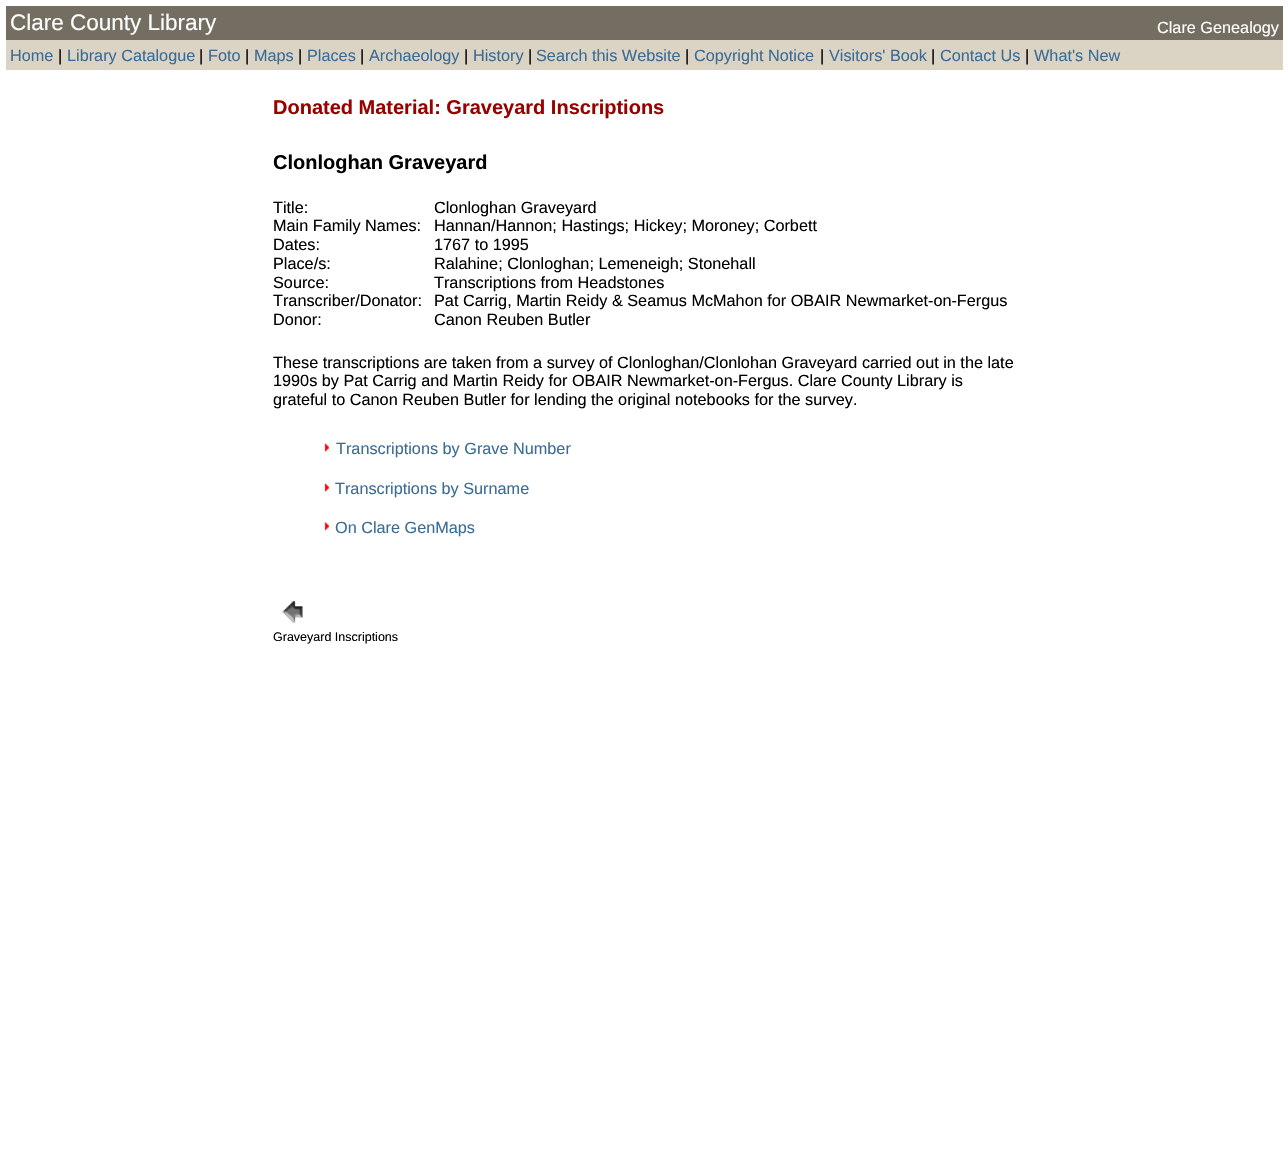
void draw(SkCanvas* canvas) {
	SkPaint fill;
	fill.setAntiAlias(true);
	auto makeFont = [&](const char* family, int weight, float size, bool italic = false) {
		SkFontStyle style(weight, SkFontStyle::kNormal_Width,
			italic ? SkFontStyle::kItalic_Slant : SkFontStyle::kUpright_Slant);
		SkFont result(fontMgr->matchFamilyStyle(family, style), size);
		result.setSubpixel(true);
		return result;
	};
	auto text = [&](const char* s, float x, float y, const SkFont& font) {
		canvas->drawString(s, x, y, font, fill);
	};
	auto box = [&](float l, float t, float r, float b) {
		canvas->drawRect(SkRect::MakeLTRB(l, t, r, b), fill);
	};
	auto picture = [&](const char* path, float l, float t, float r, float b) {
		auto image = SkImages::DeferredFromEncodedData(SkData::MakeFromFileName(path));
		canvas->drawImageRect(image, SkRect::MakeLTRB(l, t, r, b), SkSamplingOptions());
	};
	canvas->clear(0xFFFFFFFF);
	fill.setColor(0xFF746D61);
	box(6, 6, 1283, 40);
	fill.setColor(0xFFDBD4C5);
	box(6, 40, 1283, 70);
	picture("image0.png", 324, 443, 329, 452);
	picture("image0.png", 324, 483, 329, 492);
	picture("image1.png", 324, 522, 329, 531);
	picture("image2.png", 282, 601, 303, 623);
	auto font1 = makeFont("Liberation Sans", 400, 22.5f);
	fill.setColor(0xFFFFFFFF);
	text("Clare County Library", 10, 30, font1);
	auto font2 = makeFont("Liberation Sans", 400, 16.25f);
	text("Clare Genealogy", 1157, 33, font2);
	fill.setColor(0xFF3A6B94);
	text("Home", 10, 61, font2);
	fill.setColor(0xFF000000);
	text("|", 58, 61, font2);
	fill.setColor(0xFF3A6B94);
	text("Library Catalogue", 67, 61, font2);
	fill.setColor(0xFF000000);
	text("|", 199, 61, font2);
	fill.setColor(0xFF3A6B94);
	text("Foto", 208, 61, font2);
	fill.setColor(0xFF000000);
	text("|", 245, 61, font2);
	fill.setColor(0xFF3A6B94);
	text("Maps", 254, 61, font2);
	fill.setColor(0xFF000000);
	text("|", 298, 61, font2);
	fill.setColor(0xFF3A6B94);
	text("Places", 307, 61, font2);
	fill.setColor(0xFF000000);
	text("|", 360, 61, font2);
	fill.setColor(0xFF3A6B94);
	text("Archaeology", 369, 61, font2);
	fill.setColor(0xFF000000);
	text("|", 464, 61, font2);
	fill.setColor(0xFF3A6B94);
	text("History", 473, 61, font2);
	fill.setColor(0xFF000000);
	text("|", 528, 61, font2);
	fill.setColor(0xFF3A6B94);
	text("Search this Website", 536, 61, font2);
	fill.setColor(0xFF000000);
	text("|", 685, 61, font2);
	fill.setColor(0xFF3A6B94);
	text("Copyright Notice", 694, 61, font2);
	fill.setColor(0xFF000000);
	text("|", 820, 61, font2);
	fill.setColor(0xFF3A6B94);
	text("Visitors' Book", 829, 61, font2);
	fill.setColor(0xFF000000);
	text("|", 931, 61, font2);
	fill.setColor(0xFF3A6B94);
	text("Contact Us", 940, 61, font2);
	fill.setColor(0xFF000000);
	text("|", 1025, 61, font2);
	fill.setColor(0xFF3A6B94);
	text("What's New", 1034, 61, font2);
	auto font3 = makeFont("Liberation Sans", 700, 20);
	fill.setColor(0xFF990000);
	text("Donated Material: Graveyard Inscriptions", 273, 114, font3);
	fill.setColor(0xFF000000);
	text("Clonloghan Graveyard", 273, 169, font3);
	text("Title:", 273, 213, font2);
	text("Main Family Names:", 273, 231, font2);
	text("Dates:", 273, 250, font2);
	text("Place/s:", 273, 269, font2);
	text("Source:", 273, 288, font2);
	text("Transcriber/Donator:", 273, 306, font2);
	text("Donor:", 273, 325, font2);
	text("Clonloghan Graveyard", 434, 213, font2);
	text("Hannan/Hannon; Hastings; Hickey; Moroney; Corbett", 434, 231, font2);
	text("1767 to 1995", 434, 250, font2);
	text("Ralahine; Clonloghan; Lemeneigh; Stonehall", 434, 269, font2);
	text("Transcriptions from Headstones", 434, 288, font2);
	text("Pat Carrig, Martin Reidy & Seamus McMahon for OBAIR Newmarket-on-Fergus", 434, 306, font2);
	text("Canon Reuben Butler", 434, 325, font2);
	text("These transcriptions are taken from a survey of Clonloghan/Clonlohan Graveyard carried out in the late", 273, 368, font2);
	text("1990s by Pat Carrig and Martin Reidy for OBAIR Newmarket-on-Fergus. Clare County Library is", 273, 386, font2);
	text("grateful to Canon Reuben Butler for lending the original notebooks for the survey.", 273, 405, font2);
	fill.setColor(0xFF3A6B94);
	text("Transcriptions by Grave Number", 336, 454, font2);
	text("Transcriptions by Surname", 335, 494, font2);
	text("On Clare GenMaps", 335, 533, font2);
	auto font4 = makeFont("Liberation Sans", 400, 12.5f);
	fill.setColor(0xFF000000);
	text("Graveyard Inscriptions", 273, 641, font4);
}
